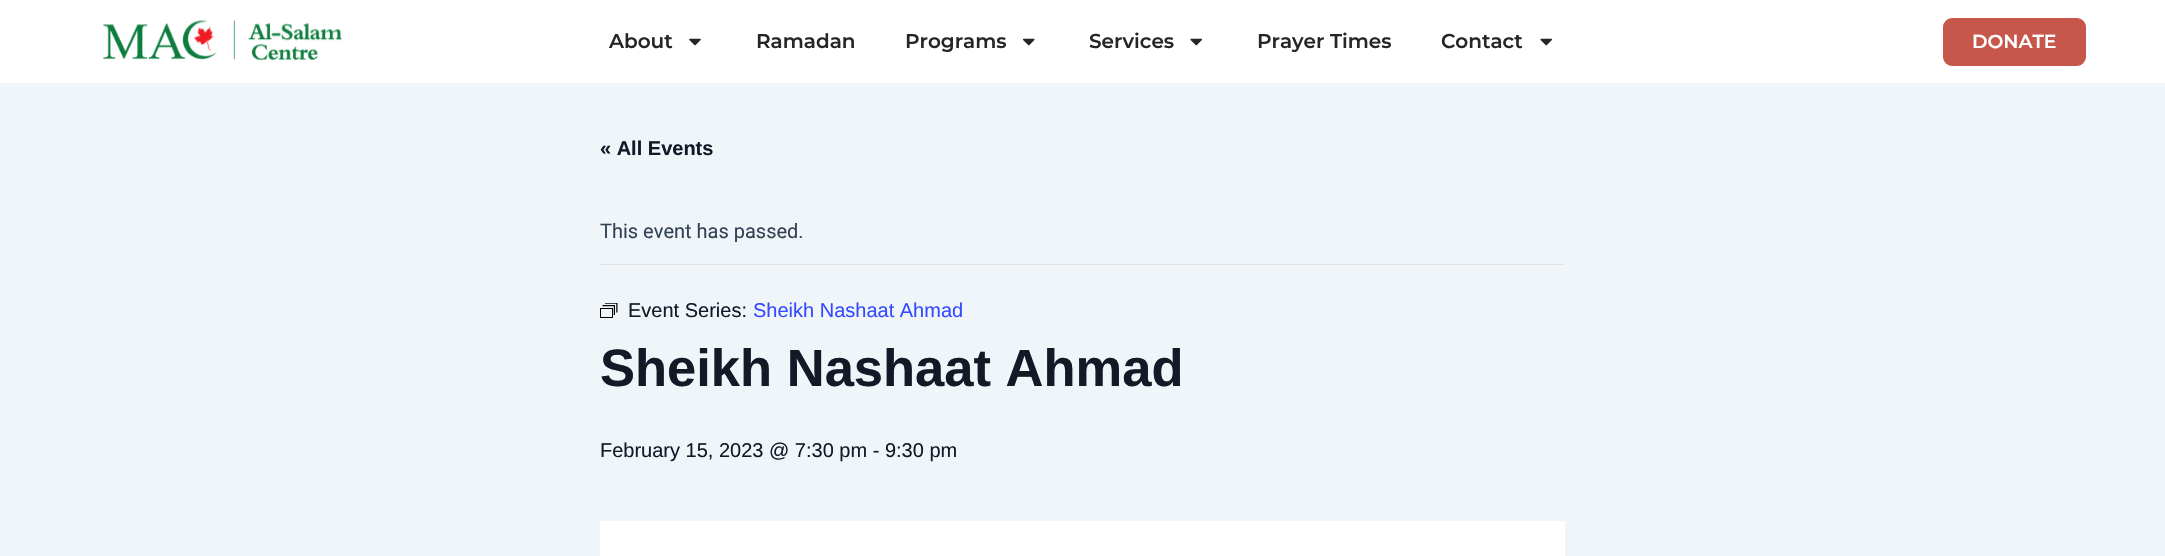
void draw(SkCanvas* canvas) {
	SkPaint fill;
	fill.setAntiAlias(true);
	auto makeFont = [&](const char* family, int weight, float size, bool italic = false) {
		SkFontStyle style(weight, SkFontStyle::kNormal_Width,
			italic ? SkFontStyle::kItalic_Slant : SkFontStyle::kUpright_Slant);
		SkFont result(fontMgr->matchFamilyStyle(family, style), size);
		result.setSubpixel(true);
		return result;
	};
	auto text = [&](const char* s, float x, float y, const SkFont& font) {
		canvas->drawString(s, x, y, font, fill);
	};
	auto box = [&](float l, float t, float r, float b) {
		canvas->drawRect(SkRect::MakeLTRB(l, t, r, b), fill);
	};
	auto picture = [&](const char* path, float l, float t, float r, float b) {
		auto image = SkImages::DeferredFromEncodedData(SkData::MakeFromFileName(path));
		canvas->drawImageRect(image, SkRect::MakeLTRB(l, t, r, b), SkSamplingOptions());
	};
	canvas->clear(0xFFF0F5FA);
	fill.setColor(0xFFFFFFFF);
	box(0, 0, 2165, 83);
	picture("image0.png", 103, 20, 342, 61);
	picture("image1.png", 689, 38, 701, 46);
	picture("image2.png", 1023, 38, 1035, 46);
	picture("image3.png", 1190, 38, 1202, 46);
	picture("image3.png", 1540, 38, 1552, 46);
	fill.setColor(0xFFC7574B);
	canvas->drawRoundRect(SkRect::MakeLTRB(1941, 16, 2088, 68), 11, 11, fill);
	fill.setStyle(SkPaint::kStroke_Style);
	fill.setStrokeWidth(4);
	fill.setColor(0xFFFFFFFF);
	canvas->drawRoundRect(SkRect::MakeLTRB(1941, 16, 2088, 68), 11, 11, fill);
	fill.setStyle(SkPaint::kFill_Style);
	fill.setColor(0xFFE4E4E4);
	box(600, 264, 1565, 265);
	picture("image4.png", 600, 303, 618, 318);
	fill.setColor(0xFFFFFFFF);
	box(600, 521, 1565, 556);
	auto font1 = makeFont("Montserrat", 600, 20);
	fill.setColor(0xFF262626);
	text("About", 609, 48, font1);
	text("Ramadan", 756, 48, font1);
	text("Programs", 905, 48, font1);
	text("Services", 1089, 48, font1);
	text("Prayer Times", 1257, 48, font1);
	text("Contact", 1441, 48, font1);
	auto font2 = makeFont("Montserrat", 600, 18.75f);
	fill.setColor(0xFFFFFFFF);
	text("DONATE", 1972, 48, font2);
	auto font3 = makeFont("Liberation Sans", 700, 20);
	fill.setColor(0xFF141827);
	text("« All Events", 600, 155, font3);
	auto font4 = makeFont("Roboto", 400, 20);
	fill.setColor(0xFF334155);
	text("This event has passed.", 600, 238, font4);
	auto font5 = makeFont("Liberation Sans", 400, 20);
	fill.setColor(0xFF141827);
	text("Event Series:", 628, 317, font5);
	fill.setColor(0xFF334AFF);
	text("Sheikh Nashaat Ahmad", 753, 317, font5);
	auto font6 = makeFont("Liberation Sans", 700, 52.5f);
	fill.setColor(0xFF141827);
	text("Sheikh Nashaat Ahmad", 600, 386, font6);
	text("February 15, 2023 @ 7:30 pm - 9:30 pm", 600, 457, font5);
}
